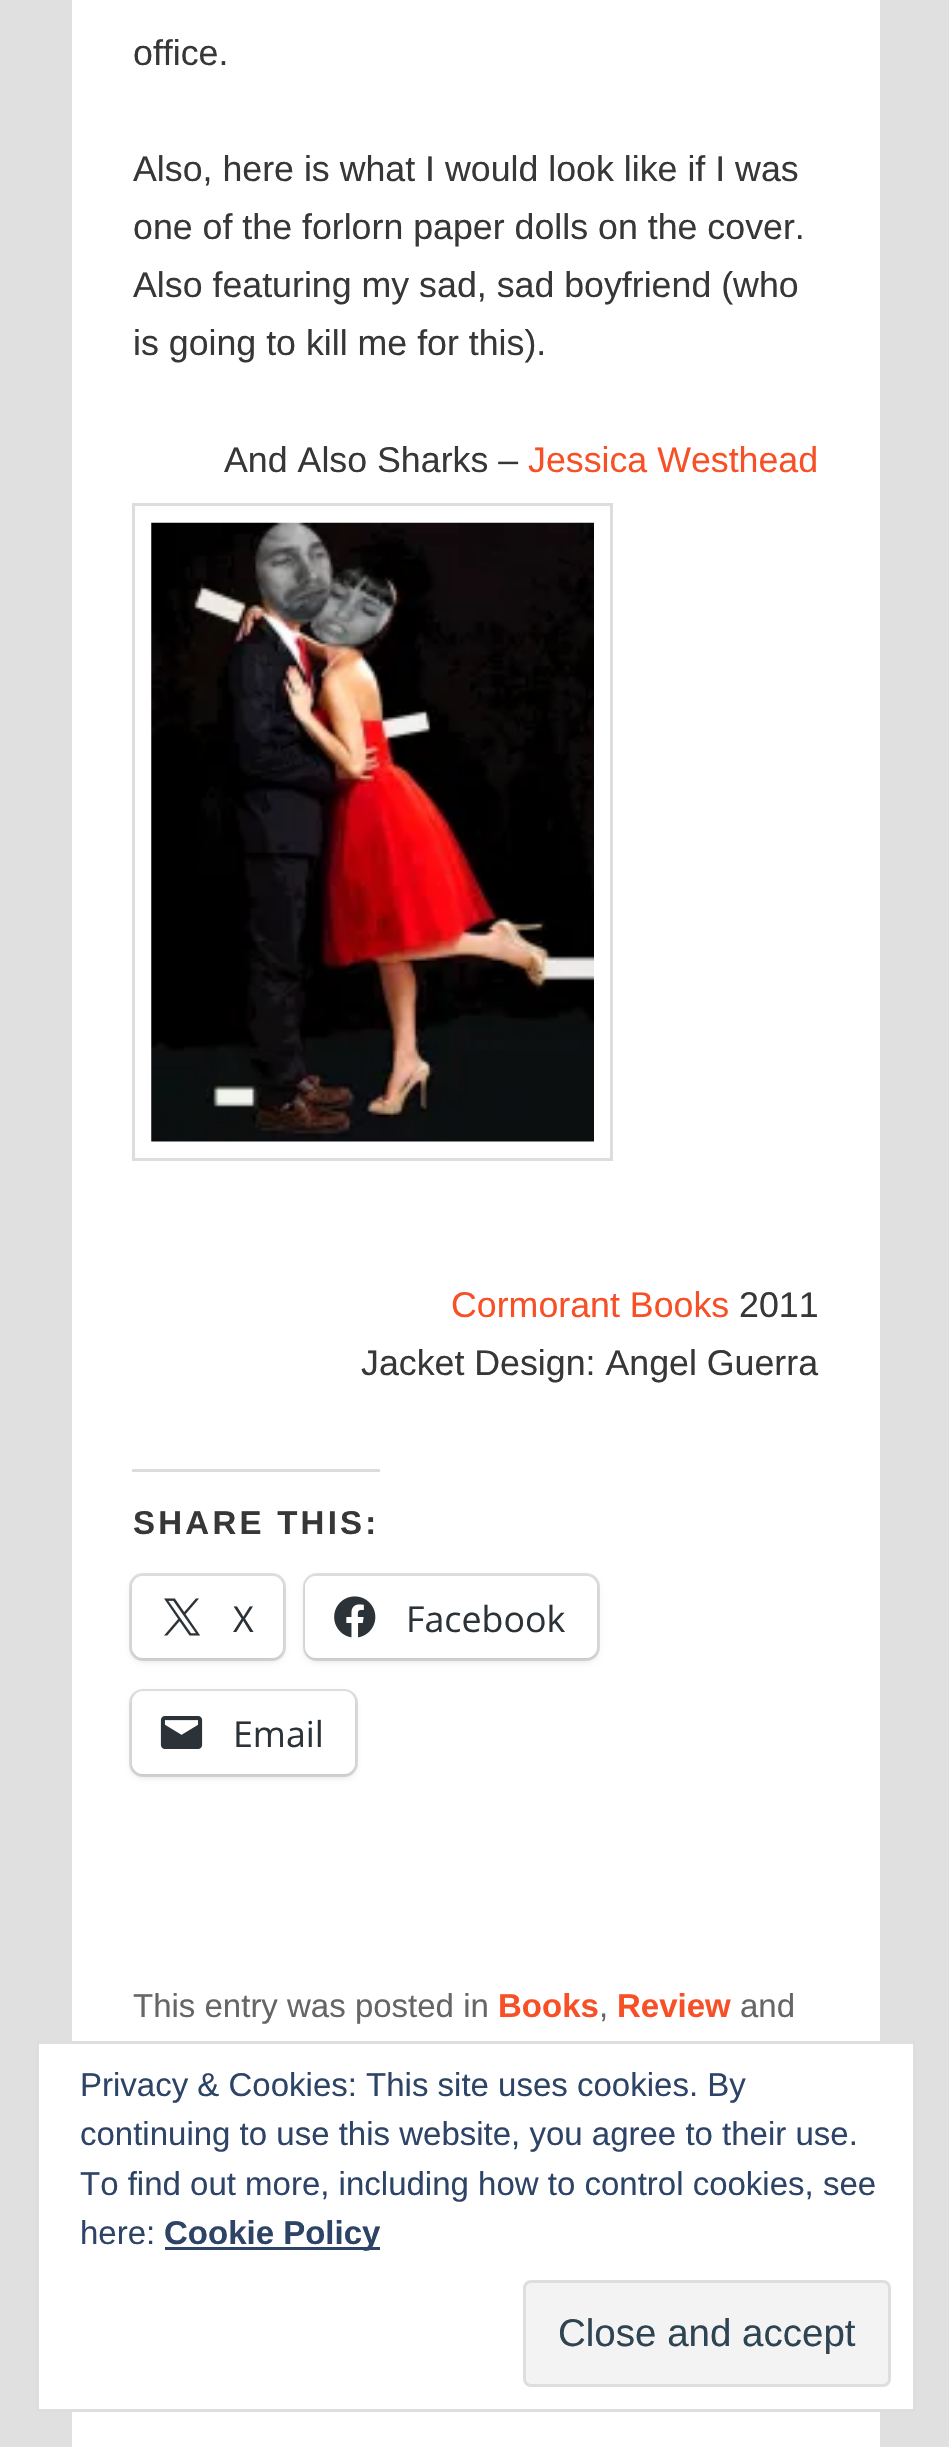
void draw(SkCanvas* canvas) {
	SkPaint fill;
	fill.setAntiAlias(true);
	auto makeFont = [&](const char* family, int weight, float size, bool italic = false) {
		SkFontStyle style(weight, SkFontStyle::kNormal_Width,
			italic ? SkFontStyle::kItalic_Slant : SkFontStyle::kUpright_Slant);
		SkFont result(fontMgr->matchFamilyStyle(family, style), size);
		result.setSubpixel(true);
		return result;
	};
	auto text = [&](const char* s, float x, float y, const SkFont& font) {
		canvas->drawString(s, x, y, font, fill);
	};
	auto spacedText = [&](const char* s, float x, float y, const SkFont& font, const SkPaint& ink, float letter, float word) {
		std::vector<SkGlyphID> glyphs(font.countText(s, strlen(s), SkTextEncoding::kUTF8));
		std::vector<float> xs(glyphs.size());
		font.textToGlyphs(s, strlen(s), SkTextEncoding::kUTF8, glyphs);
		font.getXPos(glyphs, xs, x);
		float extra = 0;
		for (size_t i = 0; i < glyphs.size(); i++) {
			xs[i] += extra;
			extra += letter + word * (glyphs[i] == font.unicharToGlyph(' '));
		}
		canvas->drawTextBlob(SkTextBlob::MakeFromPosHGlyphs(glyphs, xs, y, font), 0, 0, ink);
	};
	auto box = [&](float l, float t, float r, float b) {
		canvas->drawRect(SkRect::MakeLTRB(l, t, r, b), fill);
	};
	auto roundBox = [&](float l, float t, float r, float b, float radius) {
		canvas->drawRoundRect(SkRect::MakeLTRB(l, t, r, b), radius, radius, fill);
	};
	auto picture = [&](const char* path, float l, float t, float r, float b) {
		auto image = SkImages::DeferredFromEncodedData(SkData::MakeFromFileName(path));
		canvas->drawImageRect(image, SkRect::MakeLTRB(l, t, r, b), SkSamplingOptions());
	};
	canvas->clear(0xFFE0E0E0);
	fill.setColor(0xFFFFFFFF);
	box(72, 0, 880, 2447);
	fill.setStyle(SkPaint::kStroke_Style);
	fill.setStrokeWidth(3);
	fill.setColor(0xFFDDDDDD);
	canvas->drawRect(SkRect::MakeLTRB(133.5f, 504.5f, 611.5f, 1159.5f), fill);
	picture("image0.png", 151, 522, 594, 1142);
	fill.setStyle(SkPaint::kFill_Style);
	fill.setColor(0xFFDCDCDE);
	box(132, 1469, 380, 1472);
	fill.setStyle(SkPaint::kStroke_Style);
	fill.setColor(0xFFE0E0E0);
	canvas->drawRoundRect(SkRect::MakeLTRB(130.5f, 1574.5f, 284.5f, 1659.5f), 12.5f, 12.5f, fill);
	fill.setStyle(SkPaint::kFill_Style);
	fill.setColor(0x1F000000);
	fill.setMaskFilter(SkMaskFilter::MakeBlur(kNormal_SkBlurStyle, 3));
	canvas->drawRoundRect(SkRect::MakeLTRB(132, 1579, 283, 1661), 11, 11, fill);
	fill.setMaskFilter(nullptr);
	fill.setColor(0xFFFFFFFF);
	roundBox(132, 1576, 283, 1658, 11);
	picture("image1.png", 164, 1598, 201, 1636);
	fill.setStyle(SkPaint::kStroke_Style);
	fill.setColor(0xFFE0E0E0);
	canvas->drawRoundRect(SkRect::MakeLTRB(304.5f, 1574.5f, 598.5f, 1659.5f), 12.5f, 12.5f, fill);
	fill.setStyle(SkPaint::kFill_Style);
	fill.setColor(0x1F000000);
	fill.setMaskFilter(SkMaskFilter::MakeBlur(kNormal_SkBlurStyle, 3));
	canvas->drawRoundRect(SkRect::MakeLTRB(305, 1579, 597, 1661), 11, 11, fill);
	fill.setMaskFilter(nullptr);
	fill.setColor(0xFFFFFFFF);
	roundBox(305, 1576, 597, 1658, 11);
	picture("image2.png", 334, 1596, 376, 1638);
	fill.setStyle(SkPaint::kStroke_Style);
	fill.setColor(0xFFE0E0E0);
	canvas->drawRoundRect(SkRect::MakeLTRB(130.5f, 1690.5f, 356.5f, 1775.5f), 12.5f, 12.5f, fill);
	fill.setStyle(SkPaint::kFill_Style);
	fill.setColor(0x1F000000);
	fill.setMaskFilter(SkMaskFilter::MakeBlur(kNormal_SkBlurStyle, 3));
	canvas->drawRoundRect(SkRect::MakeLTRB(132, 1694, 355, 1777), 11, 11, fill);
	fill.setMaskFilter(nullptr);
	fill.setColor(0xFFFFFFFF);
	roundBox(132, 1691, 355, 1774, 11);
	picture("image3.png", 160, 1716, 203, 1749);
	canvas->drawRect(SkRect::MakeLTRB(37.5f, 2042.5f, 914.5f, 2410.5f), fill);
	fill.setStyle(SkPaint::kStroke_Style);
	fill.setColor(0xFFDEDEDE);
	canvas->drawRect(SkRect::MakeLTRB(37.5f, 2042.5f, 914.5f, 2410.5f), fill);
	fill.setStyle(SkPaint::kFill_Style);
	fill.setColor(0xFF2E4467);
	box(165, 2247, 380, 2250);
	fill.setColor(0xFFF3F3F3);
	canvas->drawRoundRect(SkRect::MakeLTRB(524.5f, 2281.5f, 889.5f, 2385.5f), 6.5f, 6.5f, fill);
	fill.setStyle(SkPaint::kStroke_Style);
	fill.setColor(0xFFDEDEDE);
	canvas->drawRoundRect(SkRect::MakeLTRB(524.5f, 2281.5f, 889.5f, 2385.5f), 6.5f, 6.5f, fill);
	auto font1 = makeFont("Liberation Sans", 400, 35.75f);
	fill.setStyle(SkPaint::kFill_Style);
	fill.setColor(0xFF373737);
	text("office.", 133, 65, font1);
	text("Also, here is what I would look like if I was", 133, 181, font1);
	text("one of the forlorn paper dolls on the cover.", 133, 239, font1);
	text("Also featuring my sad, sad boyfriend (who", 133, 297, font1);
	text("is going to kill me for this).", 133, 355, font1);
	text("And Also Sharks –", 224, 472, font1);
	fill.setColor(0xFFF74F26);
	text("Jessica Westhead", 528, 472, font1);
	text("Cormorant Books", 451, 1317, font1);
	fill.setColor(0xFF373737);
	text("2011", 739, 1317, font1);
	text("Jacket Design: Angel Guerra", 361, 1375, font1);
	auto font2 = makeFont("Liberation Sans", 700, 33);
	spacedText("SHARE THIS:", 133, 1534, font2, fill, 3.25f, 0);
	auto font3 = makeFont("Open Sans", 400, 35.75f);
	fill.setColor(0xFF2C3338);
	text("X", 233, 1632, font3);
	text("Facebook", 406, 1632, font3);
	text("Email", 233, 1747, font3);
	auto font4 = makeFont("Liberation Sans", 400, 33);
	fill.setColor(0xFF666666);
	text("This entry was posted in", 133, 2017, font4);
	fill.setColor(0xFFF74F26);
	text("Books", 498, 2017, font2);
	fill.setColor(0xFF666666);
	text(",", 599, 2017, font4);
	fill.setColor(0xFFF74F26);
	text("Review", 617, 2017, font2);
	fill.setColor(0xFF666666);
	text("and", 740, 2017, font4);
	fill.setColor(0xFF2E4467);
	text("Privacy & Cookies: This site uses cookies. By", 80, 2096, font4);
	text("continuing to use this website, you agree to their use.", 80, 2145, font4);
	text("To find out more, including how to control cookies, see", 80, 2195, font4);
	text("here:", 80, 2244, font4);
	text("Cookie Policy", 164, 2244, font2);
	auto font5 = makeFont("Liberation Sans", 400, 38.5f);
	fill.setColor(0xFF2E4453);
	text("Close and accept", 558, 2346, font5);
}
